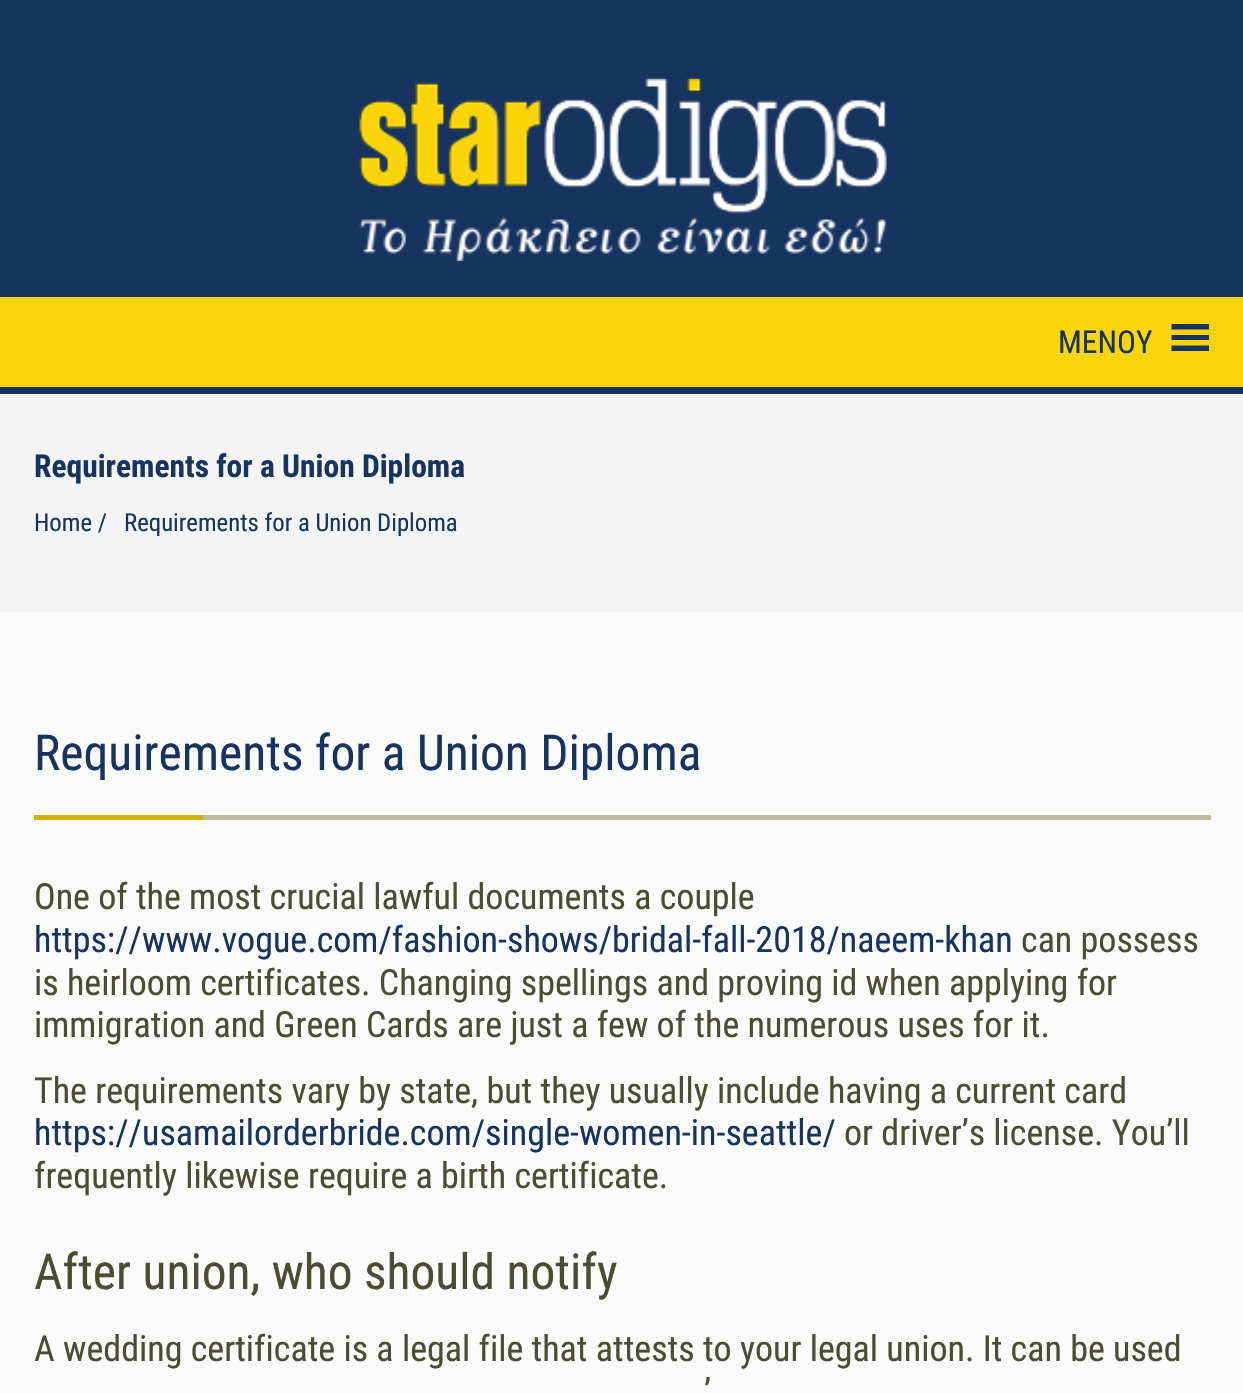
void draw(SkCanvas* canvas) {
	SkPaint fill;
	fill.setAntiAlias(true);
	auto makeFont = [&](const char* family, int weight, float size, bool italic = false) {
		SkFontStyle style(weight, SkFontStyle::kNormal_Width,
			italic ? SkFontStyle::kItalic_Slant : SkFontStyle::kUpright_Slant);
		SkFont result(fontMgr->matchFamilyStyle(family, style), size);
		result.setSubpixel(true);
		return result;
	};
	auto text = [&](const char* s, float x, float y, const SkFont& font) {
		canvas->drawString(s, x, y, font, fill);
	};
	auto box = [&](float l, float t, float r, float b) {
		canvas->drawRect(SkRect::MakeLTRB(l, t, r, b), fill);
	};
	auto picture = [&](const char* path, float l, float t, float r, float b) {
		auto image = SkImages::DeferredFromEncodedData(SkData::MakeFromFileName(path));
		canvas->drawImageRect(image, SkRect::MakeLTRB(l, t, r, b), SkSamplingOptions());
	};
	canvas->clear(0xFFFAFAFA);
	fill.setColor(0xFF173460);
	box(0, 0, 1243, 394);
	picture("image0.png", 359, 78, 887, 261);
	fill.setColor(0xFFFBD50B);
	box(0, 297, 1243, 387);
	fill.setColor(0xFF173460);
	canvas->drawPath(SkPathBuilder().moveTo(1171.5f, 351).lineTo(1209, 351).lineTo(1209, 345.5f).lineTo(1171.5f, 345.5f).close().moveTo(1171.5f, 324).lineTo(1171.5f, 329.5f).lineTo(1209, 329.5f).lineTo(1209, 324).close().moveTo(1171.5f, 340).lineTo(1209, 340).lineTo(1209, 335).lineTo(1171.5f, 335).close().detach(), fill);
	fill.setColor(0xFFF4F4F4);
	box(0, 394, 1243, 612);
	fill.setColor(0xFFBFBA9F);
	box(203, 815, 1211, 820);
	fill.setColor(0xFFD1B208);
	box(34, 815, 203, 820);
	auto font1 = makeFont("Roboto Condensed", 400, 31.5f);
	fill.setColor(0xFF173460);
	text("ΜΕΝΟΥ", 1058, 353, font1);
	auto font2 = makeFont("Roboto Condensed", 700, 31.5f);
	text("Requirements for a Union Diploma", 34, 477, font2);
	auto font3 = makeFont("Roboto Condensed", 400, 24.75f);
	text("Home /", 34, 531, font3);
	text("Requirements for a Union Diploma", 124, 531, font3);
	auto font4 = makeFont("Roboto Condensed", 400, 49.5f);
	text("Requirements for a Union Diploma", 34, 770, font4);
	auto font5 = makeFont("Roboto Condensed", 400, 36);
	fill.setColor(0xFF4B4C33);
	text("One of the most crucial lawful documents a couple", 34, 909, font5);
	fill.setColor(0xFF173460);
	text("https://www.vogue.com/fashion-shows/bridal-fall-2018/naeem-khan", 34, 952, font5);
	fill.setColor(0xFF4B4C33);
	text("can possess", 1021, 952, font5);
	text("is heirloom certificates. Changing spellings and proving id when applying for", 34, 995, font5);
	text("immigration and Green Cards are just a few of the numerous uses for it.", 34, 1037, font5);
	text("The requirements vary by state, but they usually include having a current card", 34, 1103, font5);
	fill.setColor(0xFF173460);
	text("https://usamailorderbride.com/single-women-in-seattle/", 34, 1145, font5);
	fill.setColor(0xFF4B4C33);
	text("or driver’s license. You’ll", 844, 1145, font5);
	text("frequently likewise require a birth certificate.", 34, 1188, font5);
	text("After union, who should notify", 34, 1289, font4);
	text("A wedding certificate is a legal file that attests to your legal union. It can be used", 34, 1361, font5);
	text("’", 704, 1404, font5);
}
